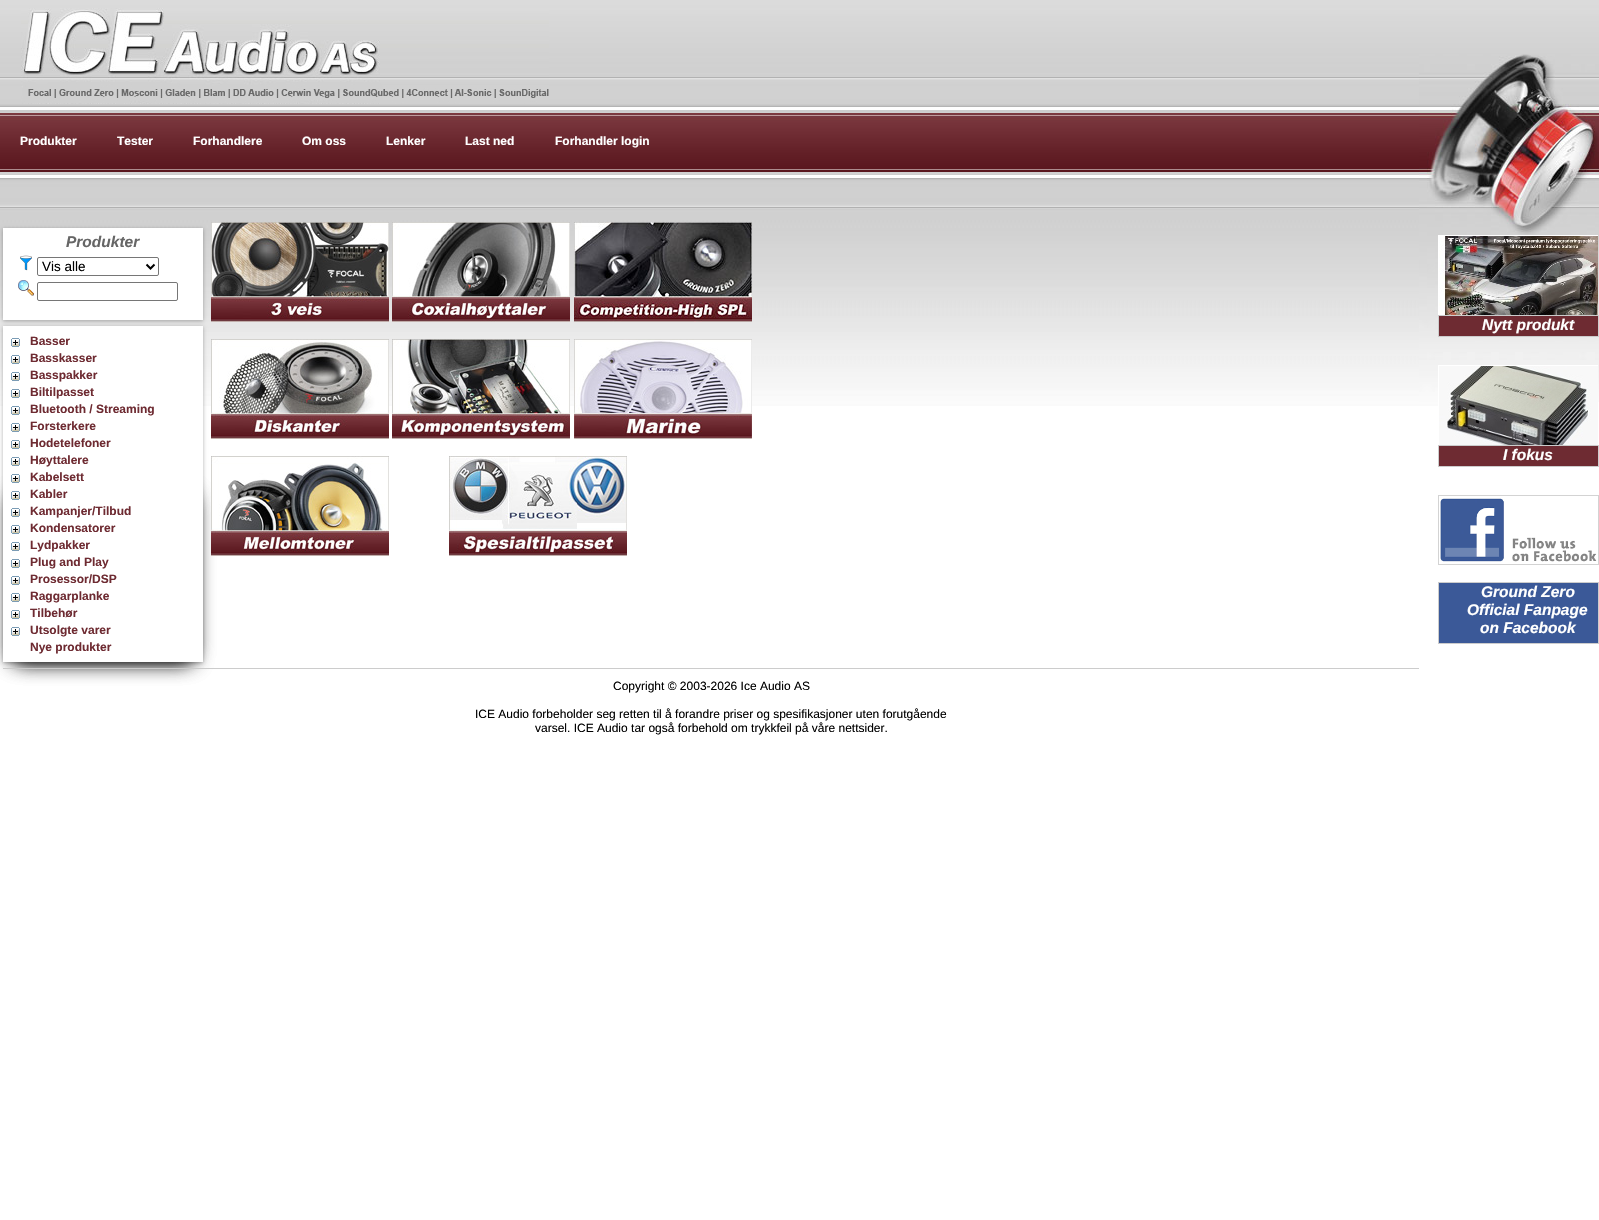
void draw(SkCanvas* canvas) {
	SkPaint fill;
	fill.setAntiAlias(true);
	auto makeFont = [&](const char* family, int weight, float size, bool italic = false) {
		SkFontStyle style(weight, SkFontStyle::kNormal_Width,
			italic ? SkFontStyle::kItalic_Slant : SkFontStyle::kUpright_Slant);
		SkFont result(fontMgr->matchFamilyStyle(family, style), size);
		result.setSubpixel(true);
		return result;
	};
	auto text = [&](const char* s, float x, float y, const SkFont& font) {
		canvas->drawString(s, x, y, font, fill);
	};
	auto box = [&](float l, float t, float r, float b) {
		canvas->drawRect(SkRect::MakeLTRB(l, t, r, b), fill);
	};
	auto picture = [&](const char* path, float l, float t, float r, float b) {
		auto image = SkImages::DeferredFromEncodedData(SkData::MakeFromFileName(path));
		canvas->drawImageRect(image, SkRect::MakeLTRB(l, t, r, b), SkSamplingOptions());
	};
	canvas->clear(0xFFFFFFFF);
	picture("image0.png", 0, 0, 1599, 113);
	picture("image1.png", 21, 8, 549, 104);
	picture("image2.png", 0, 152, 1419, 172);
	picture("image3.png", 0, 113, 1419, 152);
	picture("image4.png", 0, 172, 1469, 406);
	fill.setColor(0x4D000000);
	fill.setMaskFilter(SkMaskFilter::MakeBlur(kNormal_SkBlurStyle, 2));
	canvas->drawRect(SkRect::MakeLTRB(3, 229, 203, 321), fill);
	fill.setMaskFilter(nullptr);
	fill.setColor(0xFFFFFFFF);
	box(3, 228, 203, 320);
	picture("image5.png", 20, 255, 32, 271);
	fill.setStyle(SkPaint::kStroke_Style);
	fill.setStrokeWidth(1);
	fill.setColor(0xFF767676);
	canvas->drawRoundRect(SkRect::MakeLTRB(37.5f, 257.5f, 158.5f, 275.5f), 1.5f, 1.5f, fill);
	fill.setStrokeWidth(2);
	fill.setColor(0xFF000000);
	canvas->drawPath(SkPathBuilder().moveTo(146.5f, 264.5f).lineTo(150.5f, 268.5f).lineTo(154.5f, 264.5f).detach(), fill);
	picture("image6.png", 18, 280, 34, 296);
	fill.setStrokeWidth(1);
	fill.setColor(0xFF767676);
	canvas->drawRoundRect(SkRect::MakeLTRB(37.5f, 282.5f, 177.5f, 300.5f), 1.5f, 1.5f, fill);
	fill.setStyle(SkPaint::kFill_Style);
	fill.setColor(0xCC000000);
	fill.setMaskFilter(SkMaskFilter::MakeBlur(kNormal_SkBlurStyle, 10));
	canvas->drawRoundRect(SkRect::MakeLTRB(13, 494, 193, 662), 9, 9, fill);
	fill.setMaskFilter(nullptr);
	fill.setMaskFilter(SkMaskFilter::MakeBlur(kNormal_SkBlurStyle, 10));
	canvas->drawRoundRect(SkRect::MakeLTRB(13, 494, 193, 662), 9, 9, fill);
	fill.setMaskFilter(nullptr);
	fill.setColor(0xFFCCCCCC);
	box(3, 668, 1419, 669);
	fill.setColor(0x4D000000);
	fill.setMaskFilter(SkMaskFilter::MakeBlur(kNormal_SkBlurStyle, 2));
	canvas->drawRect(SkRect::MakeLTRB(3, 327, 203, 663), fill);
	fill.setMaskFilter(nullptr);
	fill.setColor(0xFFFFFFFF);
	box(3, 326, 203, 662);
	picture("image7.png", 11, 338, 20, 347);
	picture("image7.png", 11, 355, 20, 364);
	picture("image7.png", 11, 372, 20, 381);
	picture("image7.png", 11, 389, 20, 398);
	picture("image7.png", 11, 406, 20, 415);
	picture("image7.png", 11, 423, 20, 432);
	picture("image7.png", 11, 440, 20, 449);
	picture("image7.png", 11, 457, 20, 466);
	picture("image7.png", 11, 474, 20, 483);
	picture("image7.png", 11, 491, 20, 500);
	picture("image7.png", 11, 508, 20, 517);
	picture("image7.png", 11, 525, 20, 534);
	picture("image7.png", 11, 542, 20, 551);
	picture("image7.png", 11, 559, 20, 568);
	picture("image7.png", 11, 576, 20, 585);
	picture("image7.png", 11, 593, 20, 602);
	picture("image7.png", 11, 610, 20, 619);
	picture("image7.png", 11, 627, 20, 636);
	picture("image8.png", 211, 222, 389, 322);
	picture("image9.png", 392, 222, 570, 322);
	picture("image10.png", 574, 222, 752, 322);
	picture("image11.png", 211, 339, 389, 439);
	picture("image12.png", 392, 339, 570, 439);
	picture("image13.png", 574, 339, 752, 439);
	picture("image14.png", 211, 456, 389, 556);
	picture("image15.png", 449, 456, 627, 556);
	picture("image16.png", 1419, 54, 1599, 402);
	fill.setColor(0x1AFFFFFF);
	box(1438, 235, 1598, 315);
	fill.setColor(0xFF6E2B32);
	canvas->drawRect(SkRect::MakeLTRB(1438.5f, 315.5f, 1598.5f, 336.5f), fill);
	fill.setStyle(SkPaint::kStroke_Style);
	fill.setColor(0xFFCCCCCC);
	canvas->drawRect(SkRect::MakeLTRB(1438.5f, 315.5f, 1598.5f, 336.5f), fill);
	canvas->save();
	canvas->clipRect(SkRect::MakeLTRB(1438, 235, 1598, 315));
	fill.setColor(0x1AFFFFFF);
	canvas->drawRect(SkRect::MakeLTRB(1438.5f, 235.5f, 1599.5f, 334.5f), fill);
	canvas->restore();
	picture("image17.png", 1439, 236, 1598, 315);
	fill.setStyle(SkPaint::kFill_Style);
	fill.setColor(0xFCFFFFFF);
	box(1438, 235, 1598, 315);
	picture("image18.png", 1439, 236, 1598, 315);
	picture("image20.png", 1439, 366, 1598, 445);
	box(1438, 365, 1598, 445);
	picture("image19.png", 1439, 366, 1598, 445);
	fill.setColor(0xFF6E2B32);
	canvas->drawRect(SkRect::MakeLTRB(1438.5f, 445.5f, 1598.5f, 466.5f), fill);
	fill.setStyle(SkPaint::kStroke_Style);
	fill.setColor(0xFFCCCCCC);
	canvas->drawRect(SkRect::MakeLTRB(1438.5f, 445.5f, 1598.5f, 466.5f), fill);
	fill.setColor(0xFFD3D3D3);
	canvas->drawRect(SkRect::MakeLTRB(1438.5f, 495.5f, 1598.5f, 564.5f), fill);
	picture("image21.png", 1440, 498, 1597, 562);
	fill.setStyle(SkPaint::kFill_Style);
	fill.setColor(0xFF3B5998);
	canvas->drawRect(SkRect::MakeLTRB(1438.5f, 582.5f, 1598.5f, 643.5f), fill);
	fill.setStyle(SkPaint::kStroke_Style);
	fill.setColor(0xFFCCCCCC);
	canvas->drawRect(SkRect::MakeLTRB(1438.5f, 582.5f, 1598.5f, 643.5f), fill);
	auto font1 = makeFont("Liberation Sans", 700, 12);
	fill.setStyle(SkPaint::kFill_Style);
	fill.setColor(0xFFFFFFFF);
	text("Produkter", 20, 145, font1);
	text("Tester", 117, 145, font1);
	text("Forhandlere", 193, 145, font1);
	text("Om oss", 302, 145, font1);
	text("Lenker", 386, 145, font1);
	text("Last ned", 465, 145, font1);
	text("Forhandler login", 555, 145, font1);
	auto font2 = makeFont("Liberation Sans", 700, 15.5f, true);
	fill.setColor(0xFF666666);
	text("Produkter", 66, 247, font2);
	auto font3 = makeFont("Liberation Sans", 400, 13.5f);
	fill.setColor(0xFF000000);
	text("Vis alle", 42, 271, font3);
	fill.setColor(0xFF6E2B32);
	text("Basser", 30, 345, font1);
	text("Basskasser", 30, 362, font1);
	text("Basspakker", 30, 379, font1);
	text("Biltilpasset", 30, 396, font1);
	text("Bluetooth / Streaming", 30, 413, font1);
	text("Forsterkere", 30, 430, font1);
	text("Hodetelefoner", 30, 447, font1);
	text("Høyttalere", 30, 464, font1);
	text("Kabelsett", 30, 481, font1);
	text("Kabler", 30, 498, font1);
	text("Kampanjer/Tilbud", 30, 515, font1);
	text("Kondensatorer", 30, 532, font1);
	text("Lydpakker", 30, 549, font1);
	text("Plug and Play", 30, 566, font1);
	text("Prosessor/DSP", 30, 583, font1);
	text("Raggarplanke", 30, 600, font1);
	text("Tilbehør", 30, 617, font1);
	text("Utsolgte varer", 30, 634, font1);
	text("Nye produkter", 30, 651, font1);
	auto font4 = makeFont("Liberation Sans", 400, 12);
	fill.setColor(0xFF000000);
	text("Copyright © 2003-2026 Ice Audio AS", 613, 690, font4);
	text("ICE Audio forbeholder seg retten til å forandre priser og spesifikasjoner uten forutgående", 475, 718, font4);
	text("varsel. ICE Audio tar også forbehold om trykkfeil på våre nettsider.", 535, 732, font4);
	fill.setColor(0xFFFFFFFF);
	text("Nytt produkt", 1482, 330, font2);
	text("I fokus", 1503, 460, font2);
	text("Ground Zero", 1481, 597, font2);
	text("Official Fanpage", 1467, 615, font2);
	text("on Facebook", 1480, 633, font2);
}
